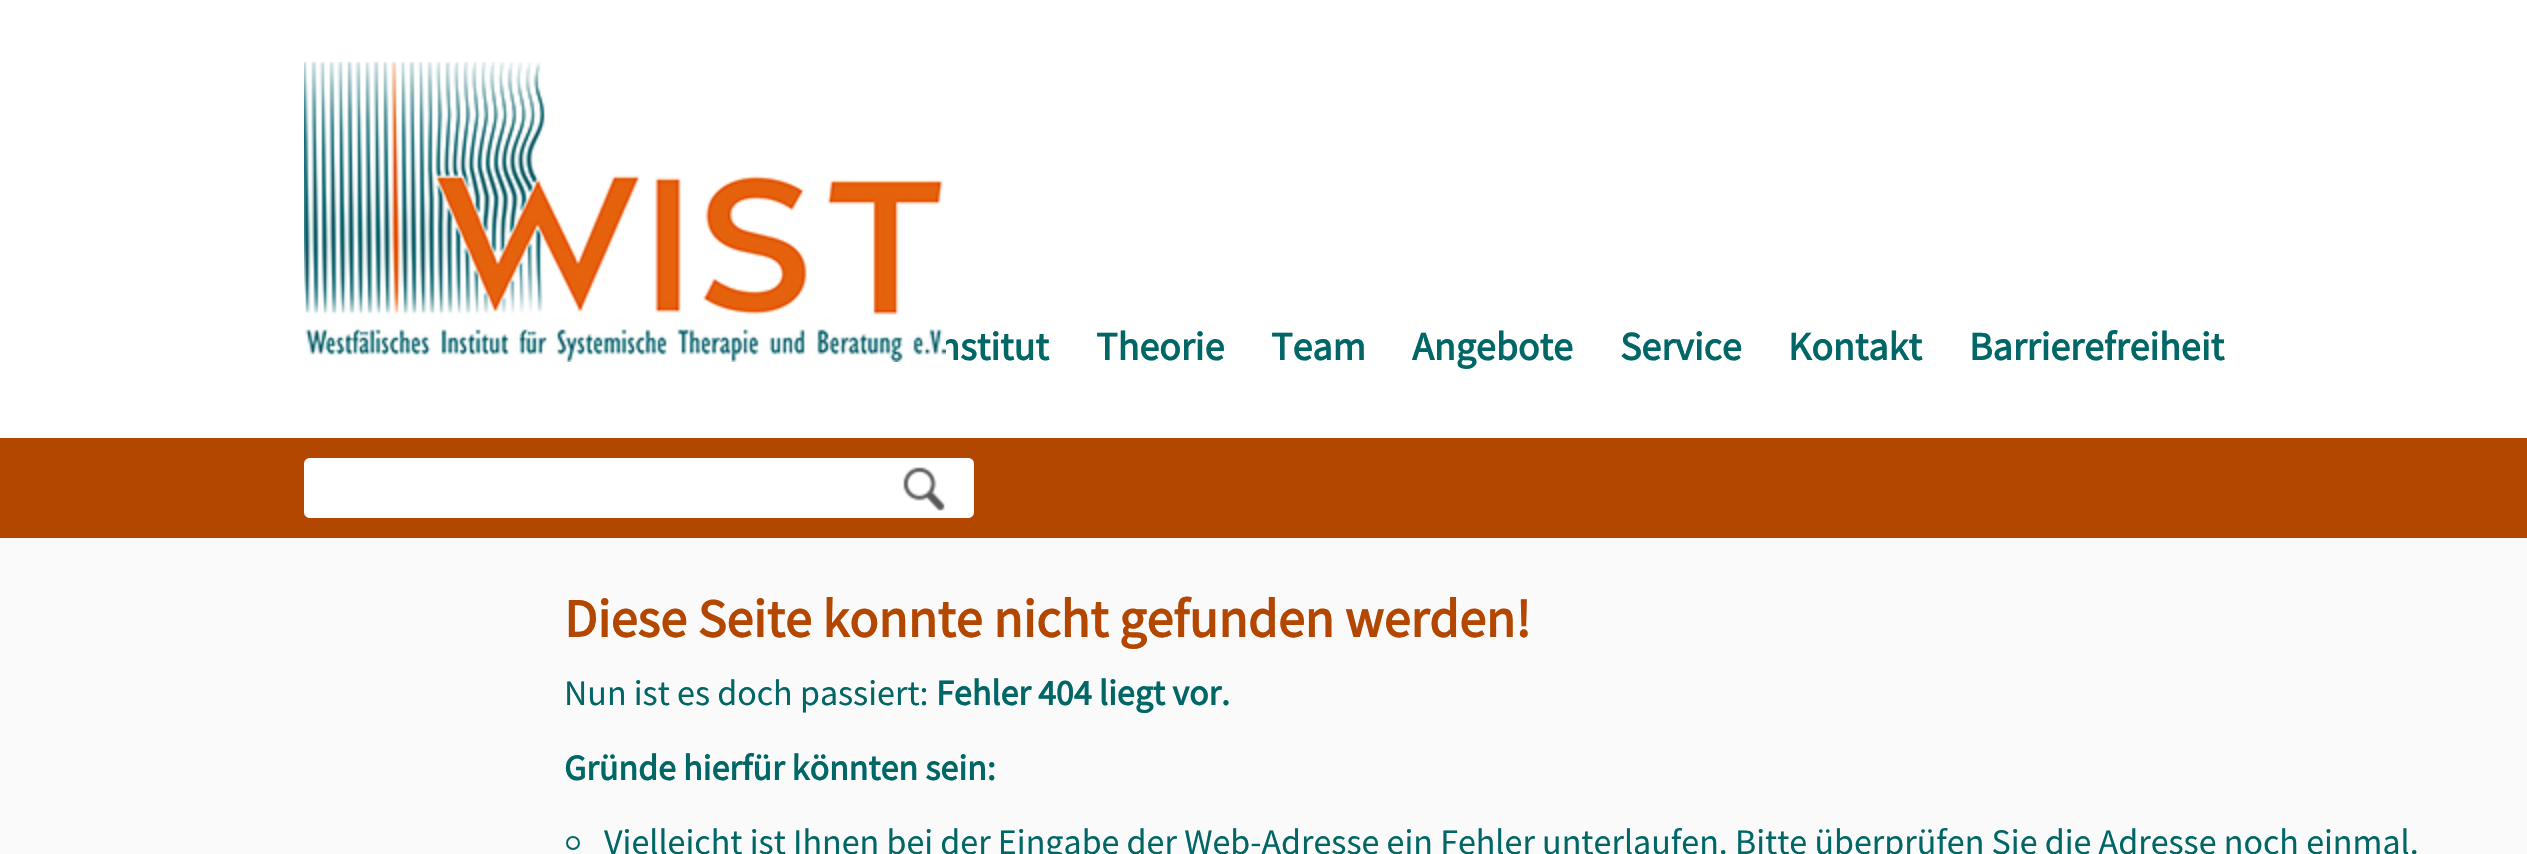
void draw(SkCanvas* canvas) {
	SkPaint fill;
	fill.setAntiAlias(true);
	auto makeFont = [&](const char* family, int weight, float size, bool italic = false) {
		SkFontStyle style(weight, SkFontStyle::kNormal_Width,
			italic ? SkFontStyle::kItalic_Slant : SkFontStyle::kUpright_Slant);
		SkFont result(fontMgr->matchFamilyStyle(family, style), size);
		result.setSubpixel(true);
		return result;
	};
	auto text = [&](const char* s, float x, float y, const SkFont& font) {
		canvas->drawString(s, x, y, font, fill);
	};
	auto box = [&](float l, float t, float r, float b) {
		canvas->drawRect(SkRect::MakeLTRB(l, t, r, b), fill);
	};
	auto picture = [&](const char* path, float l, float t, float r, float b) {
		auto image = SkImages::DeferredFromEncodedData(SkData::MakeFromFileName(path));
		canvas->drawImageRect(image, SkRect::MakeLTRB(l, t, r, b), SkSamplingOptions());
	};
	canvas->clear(0xFFFFFFFF);
	fill.setColor(0xFFB34700);
	box(0, 438, 2527, 538);
	fill.setColor(0xFFFFFFFF);
	canvas->drawPath(SkPathBuilder().moveTo(310, 458).lineTo(904, 458).lineTo(904, 518).lineTo(310, 518).cubicTo(306.5f, 518, 304, 515.5f, 304, 512).lineTo(304, 464).cubicTo(304, 460.5f, 306.5f, 458, 310, 458).close().detach(), fill);
	canvas->drawPath(SkPathBuilder().moveTo(894, 458).lineTo(968, 458).cubicTo(971.5f, 458, 974, 460.5f, 974, 464).lineTo(974, 512).cubicTo(974, 515.5f, 971.5f, 518, 968, 518).lineTo(894, 518).close().detach(), fill);
	picture("image1.png", 903, 467, 945, 511);
	fill.setColor(0xFFFAFAFA);
	box(0, 538, 2527, 854);
	fill.setStyle(SkPaint::kStroke_Style);
	fill.setStrokeWidth(2);
	fill.setColor(0xFF006666);
	canvas->drawCircle(573, 843, 6, fill);
	auto font1 = makeFont("Source Sans Pro", 700, 40);
	fill.setStyle(SkPaint::kFill_Style);
	text("nstitut", 938, 360, font1);
	picture("image0.png", 304, 62, 946, 362);
	text("Theorie", 1096, 360, font1);
	text("Team", 1271, 360, font1);
	text("Angebote", 1412, 360, font1);
	text("Service", 1620, 360, font1);
	text("Kontakt", 1788, 360, font1);
	text("Barrierefreiheit", 1969, 360, font1);
	auto font2 = makeFont("Source Sans Pro", 700, 54);
	fill.setColor(0xFFB34700);
	text("Diese Seite konnte nicht gefunden werden!", 564, 637, font2);
	auto font3 = makeFont("Source Sans Pro", 400, 36);
	fill.setColor(0xFF006666);
	text("Nun ist es doch passiert:", 564, 705, font3);
	auto font4 = makeFont("Source Sans Pro", 700, 36);
	text("Fehler 404 liegt vor.", 936, 705, font4);
	text("Gründe hierfür könnten sein:", 564, 780, font4);
	text("Vielleicht ist Ihnen bei der Eingabe der Web-Adresse ein Fehler unterlaufen. Bitte überprüfen Sie die Adresse noch einmal.", 604, 854, font3);
}
